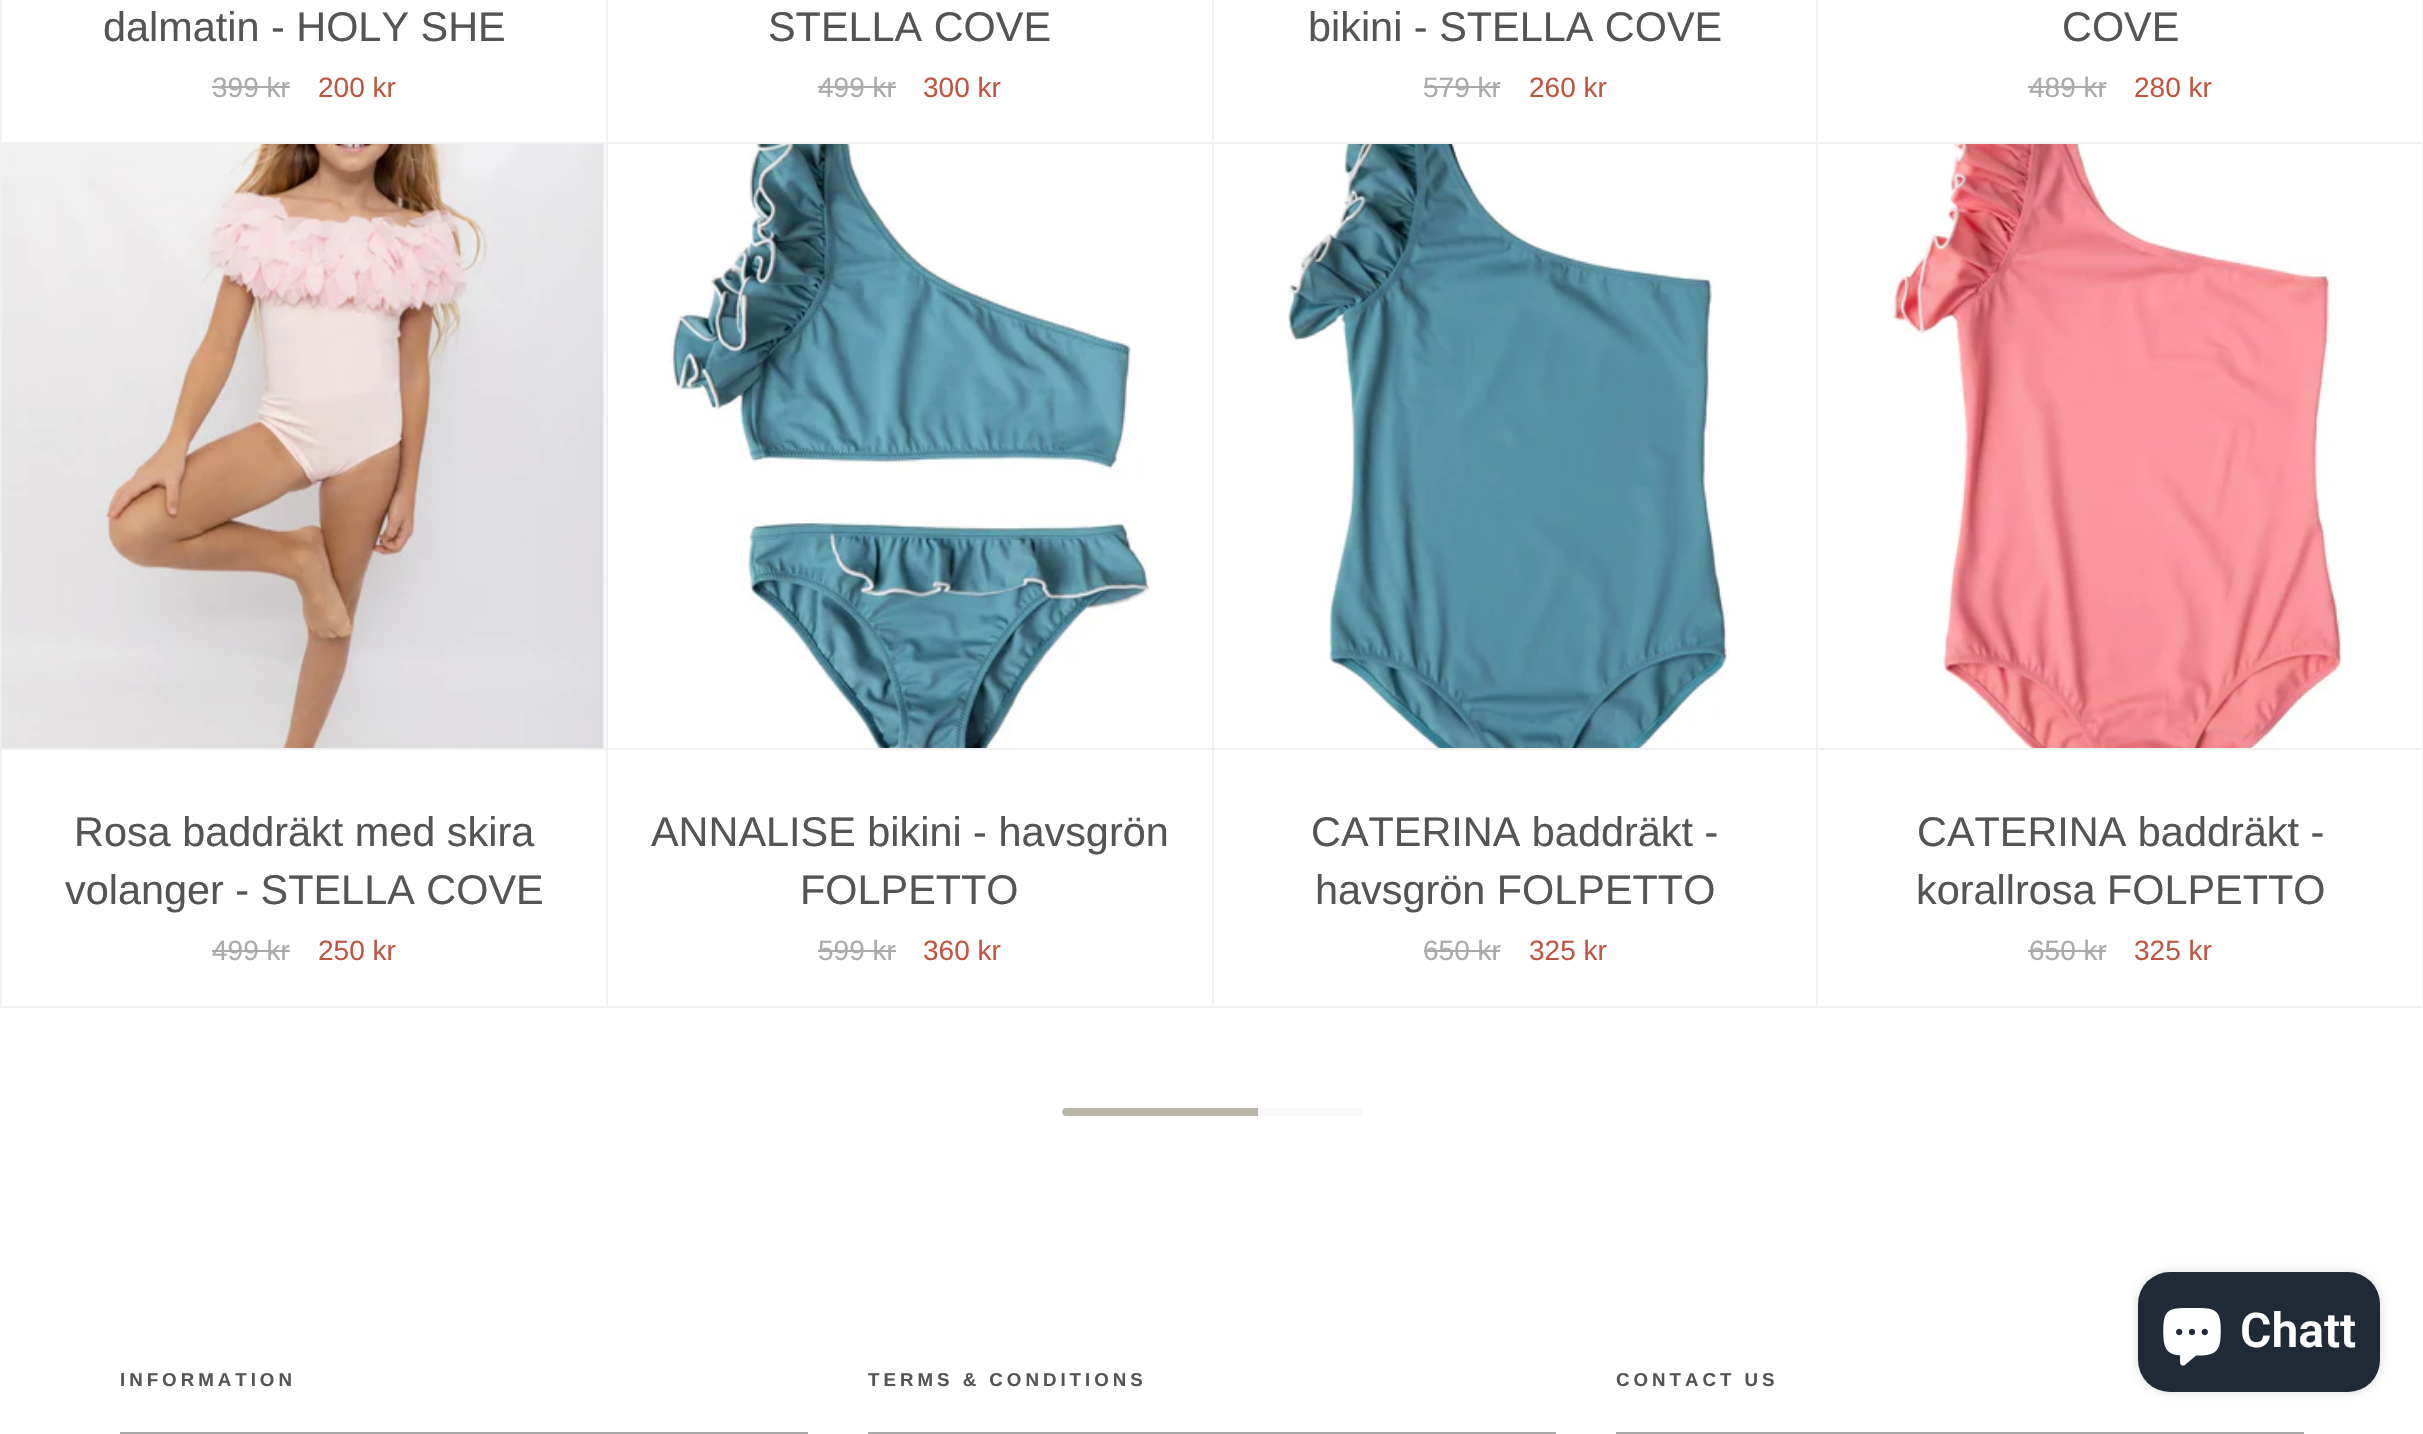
void draw(SkCanvas* canvas) {
	SkPaint fill;
	fill.setAntiAlias(true);
	auto makeFont = [&](const char* family, int weight, float size, bool italic = false) {
		SkFontStyle style(weight, SkFontStyle::kNormal_Width,
			italic ? SkFontStyle::kItalic_Slant : SkFontStyle::kUpright_Slant);
		SkFont result(fontMgr->matchFamilyStyle(family, style), size);
		result.setSubpixel(true);
		return result;
	};
	auto text = [&](const char* s, float x, float y, const SkFont& font) {
		canvas->drawString(s, x, y, font, fill);
	};
	auto spacedText = [&](const char* s, float x, float y, const SkFont& font, const SkPaint& ink, float letter, float word) {
		std::vector<SkGlyphID> glyphs(font.countText(s, strlen(s), SkTextEncoding::kUTF8));
		std::vector<float> xs(glyphs.size());
		font.textToGlyphs(s, strlen(s), SkTextEncoding::kUTF8, glyphs);
		font.getXPos(glyphs, xs, x);
		float extra = 0;
		for (size_t i = 0; i < glyphs.size(); i++) {
			xs[i] += extra;
			extra += letter + word * (glyphs[i] == font.unicharToGlyph(' '));
		}
		canvas->drawTextBlob(SkTextBlob::MakeFromPosHGlyphs(glyphs, xs, y, font), 0, 0, ink);
	};
	auto box = [&](float l, float t, float r, float b) {
		canvas->drawRect(SkRect::MakeLTRB(l, t, r, b), fill);
	};
	auto roundBox = [&](float l, float t, float r, float b, float radius) {
		canvas->drawRoundRect(SkRect::MakeLTRB(l, t, r, b), radius, radius, fill);
	};
	auto picture = [&](const char* path, float l, float t, float r, float b) {
		auto image = SkImages::DeferredFromEncodedData(SkData::MakeFromFileName(path));
		canvas->drawImageRect(image, SkRect::MakeLTRB(l, t, r, b), SkSamplingOptions());
	};
	canvas->clear(0xFFFFFFFF);
	fill.setColor(0xFFF0F0F0);
	box(0, 0, 2, 1008);
	box(606, 0, 608, 144);
	fill.setColor(0xFFAAAAAA);
	box(212, 86, 290, 88);
	fill.setColor(0xFFF0F0F0);
	box(1212, 0, 1214, 144);
	fill.setColor(0xFFAAAAAA);
	box(818, 86, 896, 88);
	fill.setColor(0xFFF0F0F0);
	box(1816, 0, 1818, 144);
	fill.setColor(0xFFAAAAAA);
	box(1424, 86, 1500, 88);
	fill.setColor(0xFFF0F0F0);
	box(2422, 0, 2423, 144);
	fill.setColor(0xFFAAAAAA);
	box(2028, 86, 2106, 88);
	fill.setColor(0xFFF0F0F0);
	box(2, 142, 2423, 144);
	box(606, 142, 608, 1008);
	box(2, 1006, 608, 1008);
	box(2, 748, 606, 750);
	picture("image0.png", 2, 144, 606, 748);
	fill.setColor(0xFFAAAAAA);
	box(212, 950, 290, 952);
	fill.setColor(0xFFF0F0F0);
	box(1212, 142, 1214, 1008);
	box(608, 1006, 1214, 1008);
	box(608, 748, 1212, 750);
	picture("image1.png", 665, 144, 1150, 748);
	fill.setColor(0xFFAAAAAA);
	box(818, 950, 896, 952);
	fill.setColor(0xFFF0F0F0);
	box(1816, 142, 1818, 1008);
	box(1214, 1006, 1818, 1008);
	box(1214, 748, 1816, 750);
	picture("image2.png", 1288, 144, 1730, 748);
	fill.setColor(0xFFAAAAAA);
	box(1424, 950, 1500, 952);
	fill.setColor(0xFFF0F0F0);
	box(2422, 142, 2423, 1008);
	box(1818, 1006, 2423, 1008);
	box(1818, 748, 2422, 750);
	picture("image3.png", 1891, 144, 2342, 748);
	fill.setColor(0xFFAAAAAA);
	box(2028, 950, 2106, 952);
	fill.setColor(0xFFF8F8F6);
	roundBox(1062, 1108, 1362, 1116, 4);
	fill.setColor(0xFFBAB5A9);
	canvas->drawPath(SkPathBuilder().moveTo(1066, 1108).lineTo(1258, 1108).lineTo(1258, 1116).lineTo(1066, 1116).cubicTo(1064, 1116, 1062, 1114, 1062, 1112).cubicTo(1062, 1110, 1064, 1108, 1066, 1108).close().detach(), fill);
	fill.setColor(0x26000000);
	fill.setMaskFilter(SkMaskFilter::MakeBlur(kNormal_SkBlurStyle, 5));
	canvas->drawRoundRect(SkRect::MakeLTRB(2138, 1272, 2380, 1392), 32, 32, fill);
	fill.setMaskFilter(nullptr);
	fill.setColor(0xFF202A36);
	roundBox(2138, 1272, 2380, 1392, 32);
	picture("image4.png", 2163, 1308, 2221, 1366);
	fill.setColor(0xFFAAAAAA);
	box(120, 1432, 808, 1434);
	box(868, 1432, 1556, 1434);
	box(1616, 1432, 2304, 1434);
	auto font1 = makeFont("Liberation Sans", 400, 41.4f);
	fill.setColor(0xFF545454);
	text("dalmatin - HOLY SHE", 103, 41, font1);
	auto font2 = makeFont("Liberation Sans", 400, 28);
	fill.setColor(0xFFAAAAAA);
	text("399 kr", 212, 97, font2);
	fill.setColor(0xFFBE563F);
	text("200 kr", 318, 97, font2);
	fill.setColor(0xFF545454);
	text("STELLA COVE", 768, 41, font1);
	fill.setColor(0xFFAAAAAA);
	text("499 kr", 818, 97, font2);
	fill.setColor(0xFFBE563F);
	text("300 kr", 923, 97, font2);
	fill.setColor(0xFF545454);
	text("bikini - STELLA COVE", 1308, 41, font1);
	fill.setColor(0xFFAAAAAA);
	text("579 kr", 1423, 97, font2);
	fill.setColor(0xFFBE563F);
	text("260 kr", 1529, 97, font2);
	fill.setColor(0xFF545454);
	text("COVE", 2062, 41, font1);
	fill.setColor(0xFFAAAAAA);
	text("489 kr", 2029, 97, font2);
	fill.setColor(0xFFBE563F);
	text("280 kr", 2134, 97, font2);
	fill.setColor(0xFF545454);
	text("Rosa baddräkt med skira", 74, 846, font1);
	text("volanger - STELLA COVE", 65, 904, font1);
	fill.setColor(0xFFAAAAAA);
	text("499 kr", 212, 960, font2);
	fill.setColor(0xFFBE563F);
	text("250 kr", 318, 960, font2);
	fill.setColor(0xFF545454);
	text("ANNALISE bikini - havsgrön", 651, 846, font1);
	text("FOLPETTO", 800, 904, font1);
	fill.setColor(0xFFAAAAAA);
	text("599 kr", 818, 960, font2);
	fill.setColor(0xFFBE563F);
	text("360 kr", 923, 960, font2);
	fill.setColor(0xFF545454);
	text("CATERINA baddräkt -", 1311, 846, font1);
	text("havsgrön FOLPETTO", 1315, 904, font1);
	fill.setColor(0xFFAAAAAA);
	text("650 kr", 1423, 960, font2);
	fill.setColor(0xFFBE563F);
	text("325 kr", 1529, 960, font2);
	fill.setColor(0xFF545454);
	text("CATERINA baddräkt -", 1917, 846, font1);
	text("korallrosa FOLPETTO", 1916, 904, font1);
	fill.setColor(0xFFAAAAAA);
	text("650 kr", 2029, 960, font2);
	fill.setColor(0xFFBE563F);
	text("325 kr", 2134, 960, font2);
	auto font3 = makeFont("Roboto", 600, 48);
	fill.setColor(0xFFFFFFFF);
	text("Chatt", 2240, 1347, font3);
	auto font4 = makeFont("Liberation Sans", 700, 18.7f);
	fill.setColor(0xFF545454);
	spacedText("INFORMATION", 120, 1386, font4, fill, 4, 0);
	spacedText("TERMS & CONDITIONS", 868, 1386, font4, fill, 4, 0);
	spacedText("CONTACT US", 1616, 1386, font4, fill, 4, 0);
}
